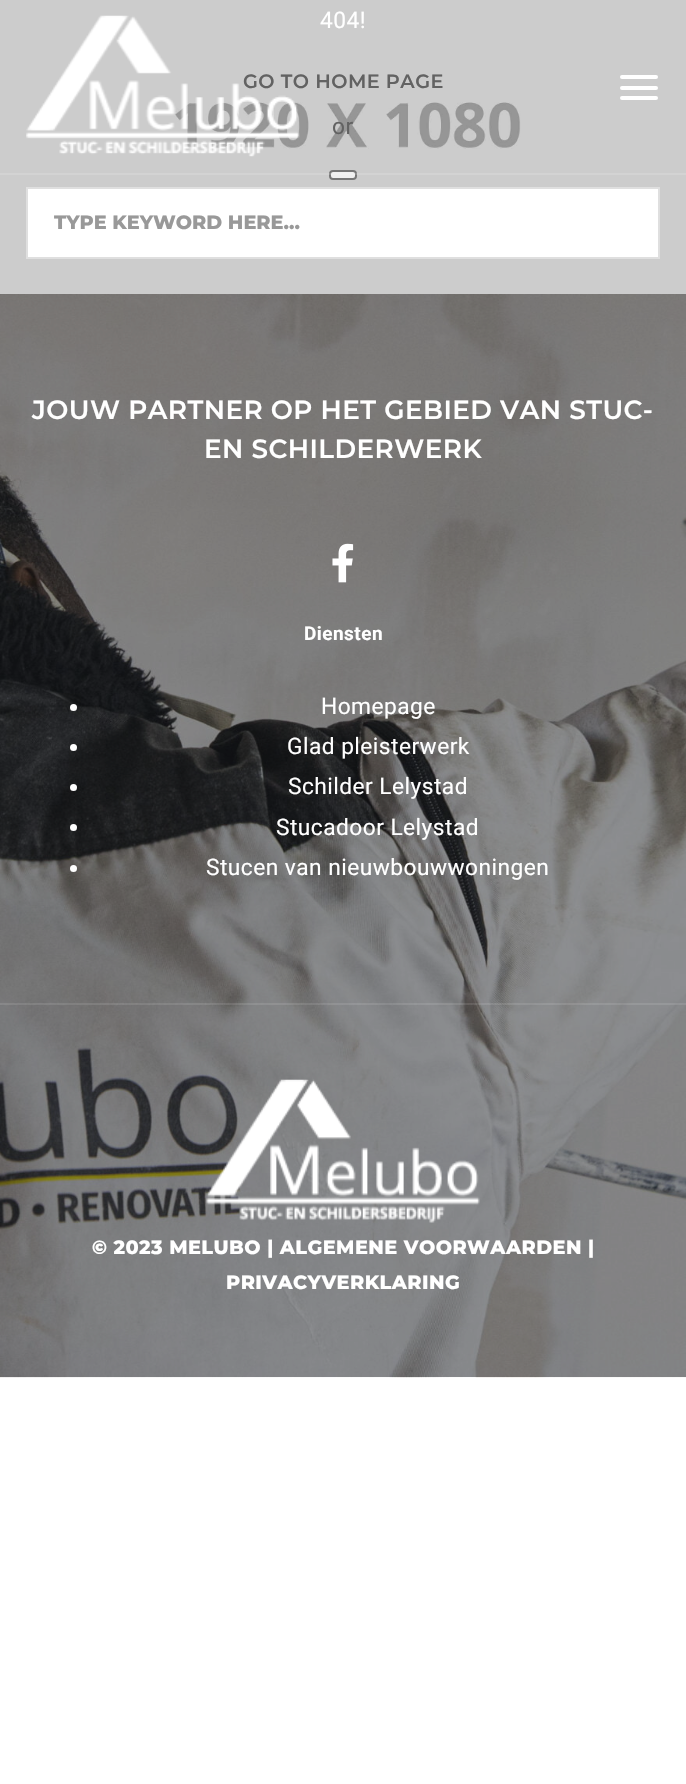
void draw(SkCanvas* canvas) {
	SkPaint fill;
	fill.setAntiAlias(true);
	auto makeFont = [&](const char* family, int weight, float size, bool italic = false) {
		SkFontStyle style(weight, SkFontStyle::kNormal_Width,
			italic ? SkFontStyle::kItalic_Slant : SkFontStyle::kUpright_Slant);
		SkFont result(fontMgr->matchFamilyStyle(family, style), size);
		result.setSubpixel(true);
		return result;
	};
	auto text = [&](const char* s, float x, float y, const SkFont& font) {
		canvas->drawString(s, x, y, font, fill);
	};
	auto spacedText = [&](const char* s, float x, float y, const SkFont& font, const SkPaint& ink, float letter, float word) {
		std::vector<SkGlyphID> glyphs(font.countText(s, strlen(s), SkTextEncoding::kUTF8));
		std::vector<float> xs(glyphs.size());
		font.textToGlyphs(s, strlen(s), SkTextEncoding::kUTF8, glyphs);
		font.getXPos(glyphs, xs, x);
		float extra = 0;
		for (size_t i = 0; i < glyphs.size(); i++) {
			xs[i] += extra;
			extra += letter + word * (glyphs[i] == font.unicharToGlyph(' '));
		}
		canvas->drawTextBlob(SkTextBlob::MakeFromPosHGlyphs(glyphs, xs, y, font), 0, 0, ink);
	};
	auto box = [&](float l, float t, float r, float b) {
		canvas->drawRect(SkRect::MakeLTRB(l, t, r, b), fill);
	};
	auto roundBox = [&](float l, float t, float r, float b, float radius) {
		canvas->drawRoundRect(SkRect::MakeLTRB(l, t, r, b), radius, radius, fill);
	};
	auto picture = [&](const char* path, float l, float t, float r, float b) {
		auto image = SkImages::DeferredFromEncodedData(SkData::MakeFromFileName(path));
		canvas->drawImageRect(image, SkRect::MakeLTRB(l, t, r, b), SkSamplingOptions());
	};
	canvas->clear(0xFFFFFFFF);
	picture("image0.png", 0, 0, 686, 294);
	fill.setColor(0xFFEFEFEF);
	canvas->drawRoundRect(SkRect::MakeLTRB(330, 171, 356, 179), 3, 3, fill);
	fill.setStyle(SkPaint::kStroke_Style);
	fill.setStrokeWidth(2);
	fill.setColor(0xFF767676);
	canvas->drawRoundRect(SkRect::MakeLTRB(330, 171, 356, 179), 3, 3, fill);
	fill.setStyle(SkPaint::kFill_Style);
	fill.setColor(0xFFFFFFFF);
	canvas->drawRect(SkRect::MakeLTRB(27, 188, 659, 258), fill);
	fill.setStyle(SkPaint::kStroke_Style);
	fill.setColor(0xFFDFDFDF);
	canvas->drawRect(SkRect::MakeLTRB(27, 188, 659, 258), fill);
	fill.setStyle(SkPaint::kFill_Style);
	fill.setColor(0x26FFFFFF);
	box(0, 173, 686, 175);
	fill.setColor(0xFFFFFFFF);
	roundBox(620, 75, 658, 79, 2);
	roundBox(620, 86, 658, 90, 2);
	roundBox(620, 96, 658, 100, 2);
	picture("image2.png", 0, 294, 686, 1378);
	picture("image3.png", 332, 543, 354, 583);
	canvas->drawCircle(73.5f, 707.5f, 3.5f, fill);
	canvas->drawCircle(73.5f, 747.5f, 3.5f, fill);
	canvas->drawCircle(73.5f, 787.5f, 3.5f, fill);
	canvas->drawCircle(73.5f, 827.5f, 3.5f, fill);
	canvas->drawCircle(73.5f, 868.5f, 3.5f, fill);
	fill.setColor(0x1AFFFFFF);
	box(0, 1003, 686, 1005);
	picture("image4.png", 206, 1079, 480, 1223);
	auto font1 = makeFont("Roboto", 400, 22.75f);
	fill.setColor(0xFFFFFFFF);
	spacedText("404!", 320, 28, font1, fill, 0.45f, 0);
	auto font2 = makeFont("Montserrat", 600, 19.25f);
	fill.setColor(0xFF626262);
	spacedText("GO TO HOME PAGE", 243, 88, font2, fill, 0.45f, 0);
	spacedText("or", 332, 134, font1, fill, 0.45f, 0);
	auto font3 = makeFont("Montserrat", 800, 19.25f);
	fill.setColor(0xFF999999);
	text("TYPE KEYWORD HERE...", 54, 229, font3);
	picture("image1.png", 26, 15, 300, 157);
	auto font4 = makeFont("Montserrat", 600, 26.25f);
	fill.setColor(0xFFFFFFFF);
	spacedText("JOUW PARTNER OP HET GEBIED VAN STUC-", 32, 419, font4, fill, 0.45f, 0);
	spacedText("EN SCHILDERWERK", 204, 458, font4, fill, 0.45f, 0);
	auto font5 = makeFont("Roboto", 700, 19);
	spacedText("Diensten", 304, 640, font5, fill, 0.45f, 0);
	spacedText("Homepage", 321, 714, font1, fill, 0.45f, 0);
	spacedText("Glad pleisterwerk", 287, 754, font1, fill, 0.45f, 0);
	spacedText("Schilder Lelystad", 288, 794, font1, fill, 0.45f, 0);
	spacedText("Stucadoor Lelystad", 276, 835, font1, fill, 0.45f, 0);
	spacedText("Stucen van nieuwbouwwoningen", 206, 875, font1, fill, 0.45f, 0);
	spacedText("© 2023 MELUBO | ALGEMENE VOORWAARDEN |", 92, 1254, font3, fill, 0.45f, 0);
	spacedText("PRIVACYVERKLARING", 226, 1289, font3, fill, 0.45f, 0);
}
